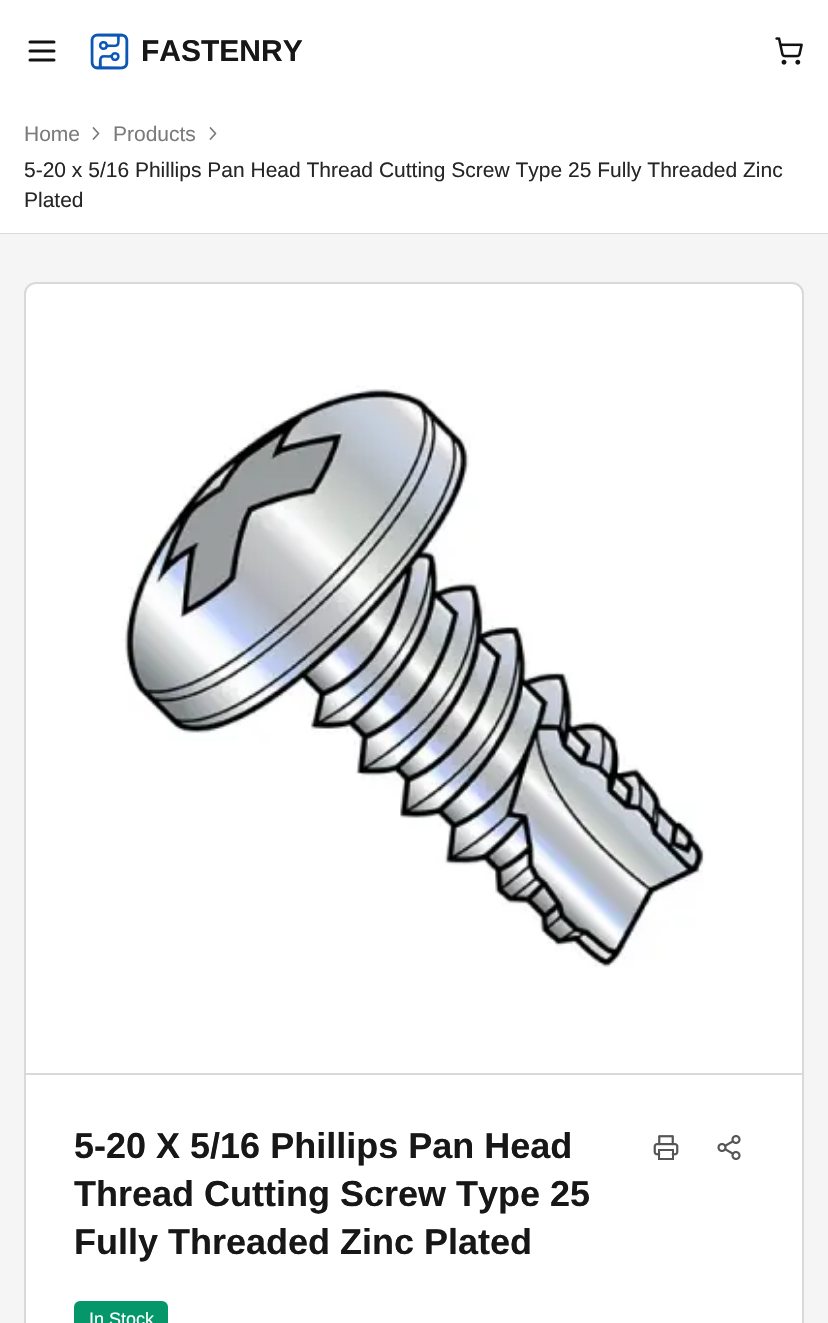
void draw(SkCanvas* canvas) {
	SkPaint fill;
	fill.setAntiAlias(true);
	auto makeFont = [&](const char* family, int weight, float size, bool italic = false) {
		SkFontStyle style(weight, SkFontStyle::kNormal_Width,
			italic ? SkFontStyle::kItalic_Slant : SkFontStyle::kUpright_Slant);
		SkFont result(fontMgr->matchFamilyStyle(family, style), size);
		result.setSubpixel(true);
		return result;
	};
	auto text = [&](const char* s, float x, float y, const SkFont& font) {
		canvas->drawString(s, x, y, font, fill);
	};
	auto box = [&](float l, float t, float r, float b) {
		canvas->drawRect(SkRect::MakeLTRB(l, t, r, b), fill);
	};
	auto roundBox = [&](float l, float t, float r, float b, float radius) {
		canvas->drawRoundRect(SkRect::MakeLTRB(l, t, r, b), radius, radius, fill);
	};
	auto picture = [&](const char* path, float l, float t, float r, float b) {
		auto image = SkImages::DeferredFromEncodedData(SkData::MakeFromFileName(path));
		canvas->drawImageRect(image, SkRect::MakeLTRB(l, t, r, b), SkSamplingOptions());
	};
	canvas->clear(0xFFFFFFFF);
	fill.setStyle(SkPaint::kStroke_Style);
	fill.setStrokeWidth(3);
	fill.setStrokeCap(SkPaint::kRound_Cap);
	fill.setStrokeJoin(SkPaint::kRound_Join);
	fill.setColor(0xFF121212);
	canvas->drawPath(SkPathBuilder().moveTo(30, 51).lineTo(54, 51).moveTo(30, 42).lineTo(54, 42).moveTo(30, 60).lineTo(54, 60).detach(), fill);
	picture("image0.png", 90, 33, 129, 70);
	picture("image1.png", 775, 37, 803, 65);
	fill.setStyle(SkPaint::kFill_Style);
	fill.setColor(0xFFD9D9D9);
	box(0, 233, 828, 234);
	fill.setStyle(SkPaint::kStroke_Style);
	fill.setStrokeWidth(1.8f);
	fill.setColor(0xFF7B7B7B);
	canvas->drawPath(SkPathBuilder().moveTo(93.5f, 139).lineTo(98.5f, 133.5f).lineTo(93.5f, 128).detach(), fill);
	canvas->drawPath(SkPathBuilder().moveTo(210.5f, 139).lineTo(215.5f, 133.5f).lineTo(210.5f, 128).detach(), fill);
	fill.setStyle(SkPaint::kFill_Style);
	fill.setColor(0xFFF5F5F5);
	box(0, 234, 828, 1323);
	fill.setColor(0xFFFFFFFF);
	canvas->drawRoundRect(SkRect::MakeLTRB(25, 283, 803, 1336), 11, 11, fill);
	fill.setStyle(SkPaint::kStroke_Style);
	fill.setStrokeWidth(2);
	fill.setStrokeCap(SkPaint::kButt_Cap);
	fill.setStrokeJoin(SkPaint::kMiter_Join);
	fill.setColor(0xFFD9D9D9);
	canvas->drawRoundRect(SkRect::MakeLTRB(25, 283, 803, 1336), 11, 11, fill);
	picture("image2.png", 122, 385, 705, 968);
	fill.setStyle(SkPaint::kFill_Style);
	box(26, 1073, 803, 1075);
	picture("image3.png", 653, 1135, 679, 1160);
	picture("image4.png", 717, 1135, 741, 1160);
	fill.setColor(0xFF059669);
	roundBox(74, 1301, 168, 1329, 6);
	auto font1 = makeFont("Liberation Sans", 700, 30);
	fill.setColor(0xFF171717);
	text("FASTENRY", 141, 61, font1);
	auto font2 = makeFont("Liberation Sans", 400, 21);
	fill.setColor(0xFF7B7B7B);
	text("Home", 24, 141, font2);
	text("Products", 113, 141, font2);
	fill.setColor(0xFF262626);
	text("5-20 x 5/16 Phillips Pan Head Thread Cutting Screw Type 25 Fully Threaded Zinc", 24, 177, font2);
	text("Plated", 24, 207, font2);
	auto font3 = makeFont("Liberation Sans", 700, 36);
	fill.setColor(0xFF171717);
	text("5-20 X 5/16 Phillips Pan Head", 74, 1158, font3);
	text("Thread Cutting Screw Type 25", 74, 1206, font3);
	text("Fully Threaded Zinc Plated", 74, 1254, font3);
	auto font4 = makeFont("Liberation Sans", 400, 18);
	fill.setColor(0xFFFFFFFF);
	text("In Stock", 89, 1325, font4);
}
